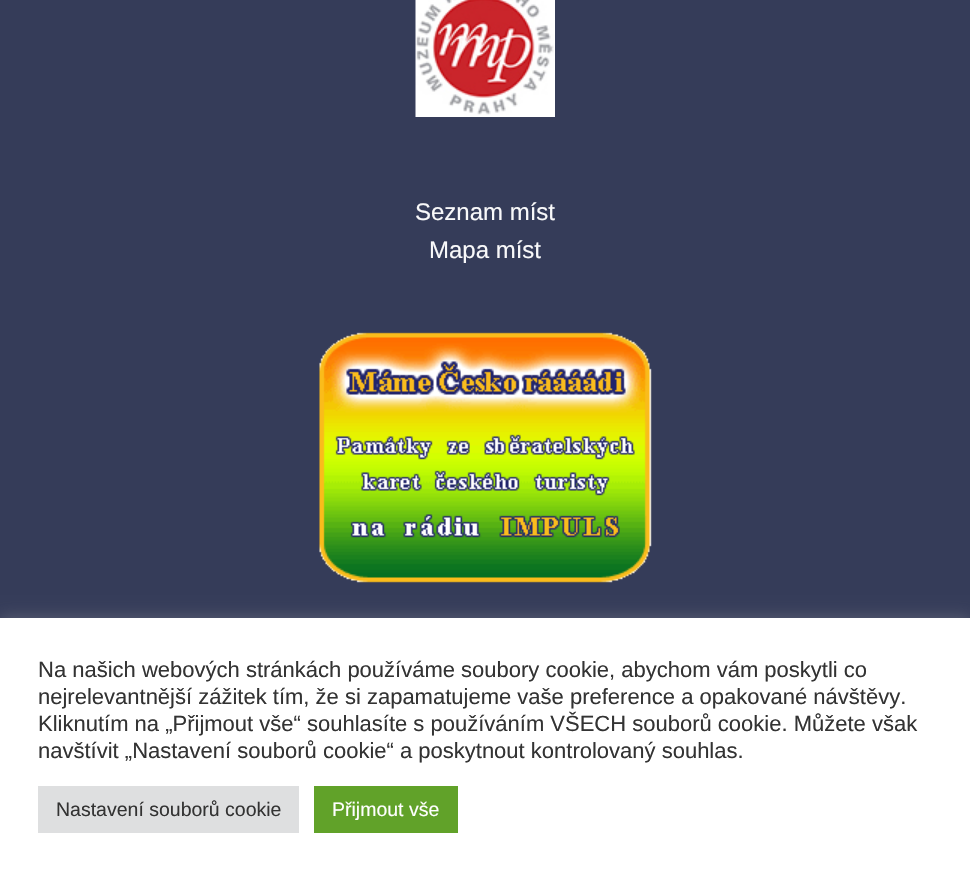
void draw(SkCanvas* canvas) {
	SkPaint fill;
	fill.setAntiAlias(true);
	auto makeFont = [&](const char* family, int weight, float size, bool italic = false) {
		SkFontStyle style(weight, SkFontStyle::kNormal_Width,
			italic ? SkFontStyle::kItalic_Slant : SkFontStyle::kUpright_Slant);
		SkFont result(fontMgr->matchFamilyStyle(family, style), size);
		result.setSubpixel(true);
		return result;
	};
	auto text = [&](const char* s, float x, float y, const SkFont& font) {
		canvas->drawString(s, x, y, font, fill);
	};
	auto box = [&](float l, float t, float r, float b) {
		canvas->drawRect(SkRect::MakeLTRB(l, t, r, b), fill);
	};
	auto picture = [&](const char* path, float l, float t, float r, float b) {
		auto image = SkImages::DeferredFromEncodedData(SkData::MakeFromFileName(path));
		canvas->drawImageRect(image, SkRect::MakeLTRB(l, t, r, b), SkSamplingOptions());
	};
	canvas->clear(0xFF353C59);
	picture("image0.png", 415, 0, 555, 117);
	picture("image1.png", 319, 332, 652, 583);
	fill.setColor(0x4DACABAB);
	fill.setMaskFilter(SkMaskFilter::MakeBlur(kNormal_SkBlurStyle, 7.5f));
	canvas->drawRect(SkRect::MakeLTRB(0, 617, 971, 876), fill);
	fill.setMaskFilter(nullptr);
	fill.setColor(0xFFFFFFFF);
	box(0, 618, 970, 877);
	fill.setColor(0xFFDEDFE0);
	box(38, 786, 299, 833);
	fill.setColor(0xFF61A229);
	box(314, 786, 458, 833);
	auto font1 = makeFont("Liberation Sans", 400, 24);
	fill.setColor(0xFFF9F9FA);
	text("Seznam míst", 415, 220, font1);
	text("Mapa míst", 429, 258, font1);
	auto font2 = makeFont("Liberation Sans", 400, 22);
	fill.setColor(0xFF333333);
	text("Na našich webových stránkách používáme soubory cookie, abychom vám poskytli co", 38, 677, font2);
	text("nejrelevantnější zážitek tím, že si zapamatujeme vaše preference a opakované návštěvy.", 38, 704, font2);
	text("Kliknutím na „Přijmout vše“ souhlasíte s používáním VŠECH souborů cookie. Můžete však", 38, 731, font2);
	text("navštívit „Nastavení souborů cookie“ a poskytnout kontrolovaný souhlas.", 38, 758, font2);
	auto font3 = makeFont("Liberation Sans", 400, 19.5f);
	text("Nastavení souborů cookie", 56, 816, font3);
	fill.setColor(0xFFFFFFFF);
	text("Přijmout vše", 332, 816, font3);
}
